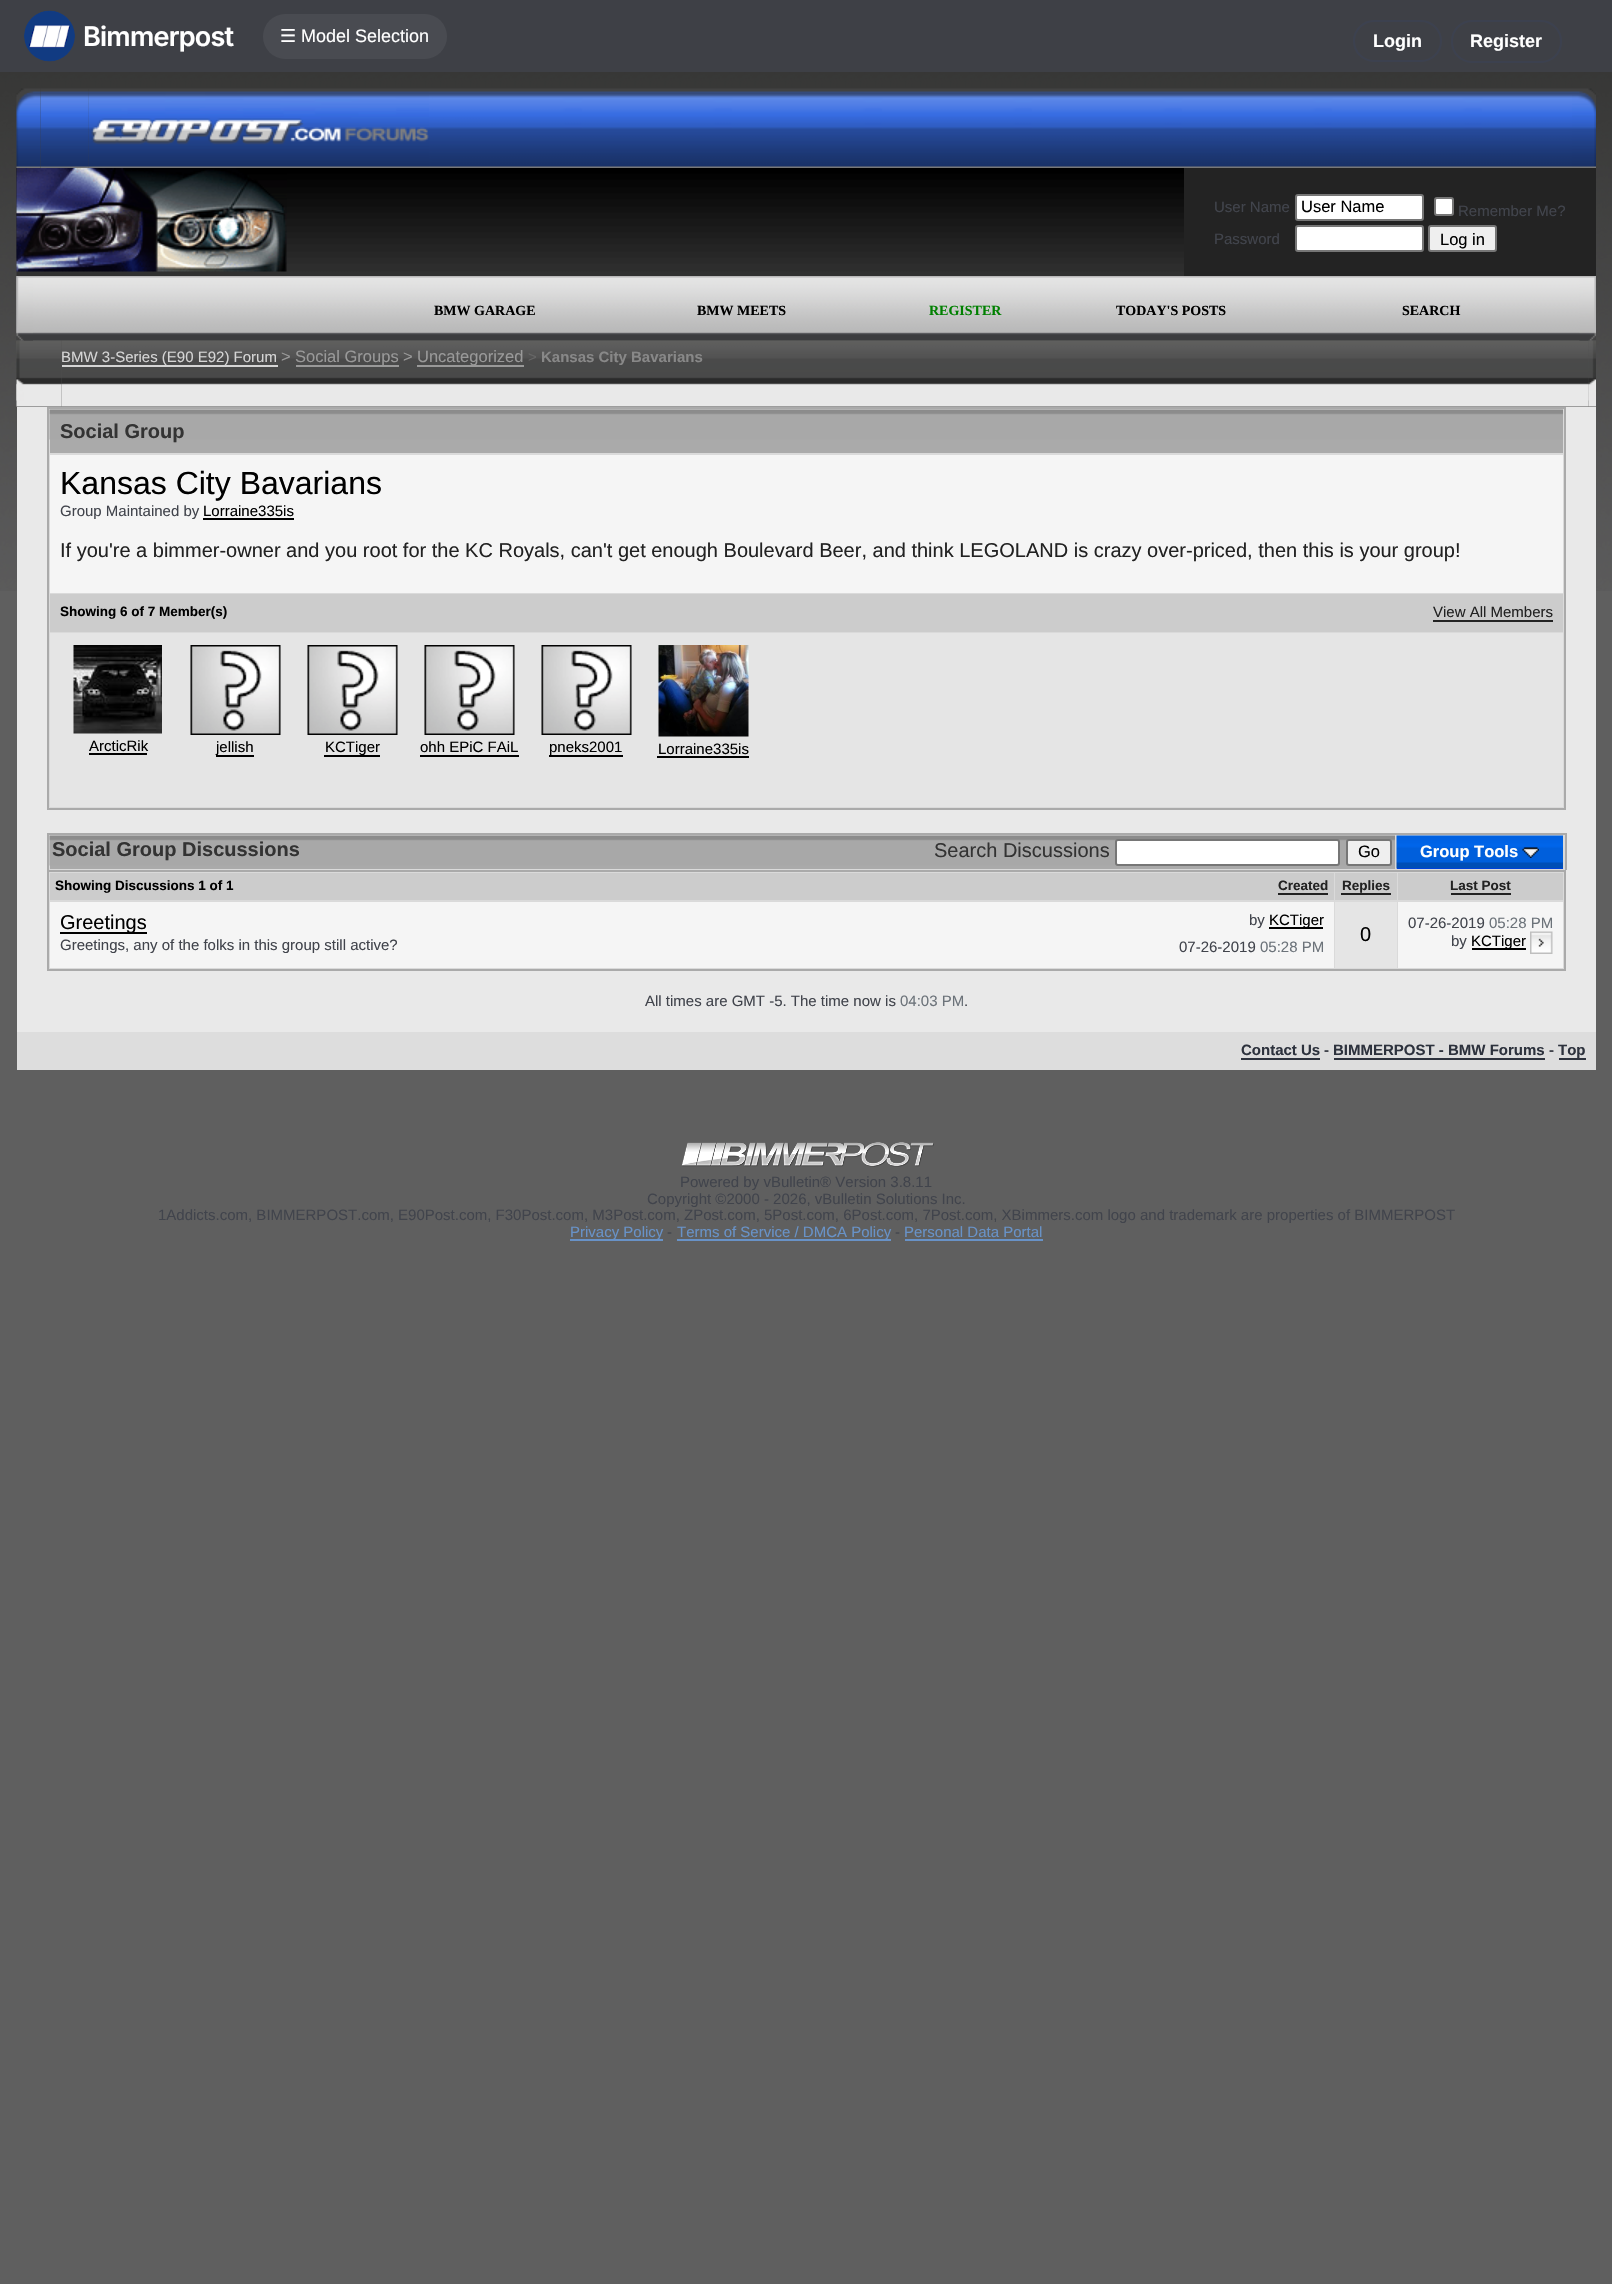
void draw(SkCanvas* canvas) {
	SkPaint fill;
	fill.setAntiAlias(true);
	auto makeFont = [&](const char* family, int weight, float size, bool italic = false) {
		SkFontStyle style(weight, SkFontStyle::kNormal_Width,
			italic ? SkFontStyle::kItalic_Slant : SkFontStyle::kUpright_Slant);
		SkFont result(fontMgr->matchFamilyStyle(family, style), size);
		result.setSubpixel(true);
		return result;
	};
	auto text = [&](const char* s, float x, float y, const SkFont& font) {
		canvas->drawString(s, x, y, font, fill);
	};
	auto spacedText = [&](const char* s, float x, float y, const SkFont& font, const SkPaint& ink, float letter, float word) {
		std::vector<SkGlyphID> glyphs(font.countText(s, strlen(s), SkTextEncoding::kUTF8));
		std::vector<float> xs(glyphs.size());
		font.textToGlyphs(s, strlen(s), SkTextEncoding::kUTF8, glyphs);
		font.getXPos(glyphs, xs, x);
		float extra = 0;
		for (size_t i = 0; i < glyphs.size(); i++) {
			xs[i] += extra;
			extra += letter + word * (glyphs[i] == font.unicharToGlyph(' '));
		}
		canvas->drawTextBlob(SkTextBlob::MakeFromPosHGlyphs(glyphs, xs, y, font), 0, 0, ink);
	};
	auto box = [&](float l, float t, float r, float b) {
		canvas->drawRect(SkRect::MakeLTRB(l, t, r, b), fill);
	};
	auto roundBox = [&](float l, float t, float r, float b, float radius) {
		canvas->drawRoundRect(SkRect::MakeLTRB(l, t, r, b), radius, radius, fill);
	};
	auto picture = [&](const char* path, float l, float t, float r, float b) {
		auto image = SkImages::DeferredFromEncodedData(SkData::MakeFromFileName(path));
		canvas->drawImageRect(image, SkRect::MakeLTRB(l, t, r, b), SkSamplingOptions());
	};
	canvas->clear(0xFF5F5F5F);
	picture("image0.png", 0, 72, 1612, 591);
	fill.setColor(0xFF3E4046);
	box(0, 0, 1612, 72);
	picture("image1.png", 24, 10, 75, 62);
	fill.setColor(0xFF494B51);
	roundBox(263, 14, 447, 59, 22.5f);
	fill.setStyle(SkPaint::kStroke_Style);
	fill.setStrokeWidth(2);
	fill.setColor(0xFF3C414F);
	canvas->drawRoundRect(SkRect::MakeLTRB(1354, 21, 1441, 61), 20, 20, fill);
	canvas->drawRoundRect(SkRect::MakeLTRB(1452, 21, 1561, 62), 20, 20, fill);
	picture("image3.png", 40, 88, 89, 168);
	picture("image2.png", 16, 88, 41, 168);
	picture("image4.png", 88, 88, 432, 168);
	picture("image5.png", 88, 91, 429, 168);
	picture("image6.png", 432, 88, 1572, 168);
	picture("image7.png", 1572, 88, 1596, 168);
	picture("image8.png", 16, 168, 1184, 276);
	picture("image9.png", 16, 168, 287, 272);
	fill.setStyle(SkPaint::kFill_Style);
	fill.setColor(0xFF232323);
	box(1184, 168, 1596, 276);
	fill.setColor(0xFFFFFFFF);
	canvas->drawRoundRect(SkRect::MakeLTRB(1296, 195, 1423, 220), 2, 2, fill);
	fill.setStyle(SkPaint::kStroke_Style);
	fill.setColor(0xFF767676);
	canvas->drawRoundRect(SkRect::MakeLTRB(1296, 195, 1423, 220), 2, 2, fill);
	fill.setStyle(SkPaint::kFill_Style);
	fill.setColor(0xFFFFFFFF);
	canvas->drawRoundRect(SkRect::MakeLTRB(1435, 198, 1453, 215), 2, 2, fill);
	fill.setStyle(SkPaint::kStroke_Style);
	fill.setColor(0xFF767676);
	canvas->drawRoundRect(SkRect::MakeLTRB(1435, 198, 1453, 215), 2, 2, fill);
	fill.setStyle(SkPaint::kFill_Style);
	fill.setColor(0xFFFFFFFF);
	canvas->drawRoundRect(SkRect::MakeLTRB(1296, 226, 1423, 251), 2, 2, fill);
	fill.setStyle(SkPaint::kStroke_Style);
	fill.setColor(0xFF767676);
	canvas->drawRoundRect(SkRect::MakeLTRB(1296, 226, 1423, 251), 2, 2, fill);
	fill.setStyle(SkPaint::kFill_Style);
	fill.setColor(0xFFEFEFEF);
	canvas->drawRoundRect(SkRect::MakeLTRB(1429, 226, 1496, 251), 2, 2, fill);
	fill.setStyle(SkPaint::kStroke_Style);
	fill.setColor(0xFF767676);
	canvas->drawRoundRect(SkRect::MakeLTRB(1429, 226, 1496, 251), 2, 2, fill);
	picture("image10.png", 16, 276, 1596, 341);
	picture("image13.png", 16, 340, 62, 407);
	picture("image11.png", 16, 276, 33, 341);
	picture("image15.png", 61, 340, 1589, 407);
	picture("image16.png", 1588, 340, 1596, 407);
	picture("image12.png", 1579, 277, 1596, 341);
	picture("image14.png", 16, 340, 24, 401);
	fill.setStyle(SkPaint::kFill_Style);
	fill.setColor(0xFFD5D5D5);
	box(62, 365, 278, 367);
	fill.setColor(0xFF999999);
	box(296, 365, 399, 367);
	box(417, 365, 524, 367);
	picture("image17.png", 1588, 340, 1596, 401);
	fill.setColor(0xFFE9E9E9);
	box(17, 407, 1596, 1032);
	fill.setColor(0xFFDADADA);
	canvas->drawRect(SkRect::MakeLTRB(48, 408, 1565, 809), fill);
	fill.setStyle(SkPaint::kStroke_Style);
	fill.setColor(0xFFAAAAAA);
	canvas->drawRect(SkRect::MakeLTRB(48, 408, 1565, 809), fill);
	fill.setStyle(SkPaint::kFill_Style);
	box(50, 439, 1563, 453);
	picture("image18.png", 49, 409, 1563, 440);
	fill.setColor(0xFFF5F5F5);
	box(50, 455, 1563, 593);
	fill.setColor(0xFF000000);
	box(203, 518, 294, 520);
	fill.setColor(0xFFCCCCCC);
	box(50, 594, 1563, 632);
	fill.setColor(0xFF222222);
	box(1433, 620, 1553, 622);
	fill.setColor(0xFFE5E5E5);
	box(50, 633, 1563, 807);
	picture("image19.png", 73, 645, 162, 734);
	fill.setColor(0xFF000000);
	box(89, 753, 147, 755);
	picture("image20.png", 190, 645, 281, 735);
	box(216, 755, 254, 757);
	picture("image20.png", 307, 645, 398, 735);
	box(324, 755, 380, 757);
	picture("image21.png", 424, 645, 515, 735);
	box(420, 755, 519, 757);
	picture("image22.png", 541, 645, 632, 735);
	box(549, 755, 623, 757);
	picture("image23.png", 658, 645, 749, 737);
	box(657, 756, 749, 758);
	fill.setColor(0xFFDADADA);
	box(49, 835, 1565, 870);
	fill.setColor(0xFFAAAAAA);
	box(47, 833, 1566, 835);
	box(1565, 833, 1567, 870);
	box(47, 833, 49, 870);
	box(50, 865, 1395, 869);
	picture("image24.png", 49, 835, 1395, 866);
	fill.setColor(0xFFFFFFFF);
	canvas->drawRoundRect(SkRect::MakeLTRB(1116, 840, 1339, 865), 2, 2, fill);
	fill.setStyle(SkPaint::kStroke_Style);
	fill.setColor(0xFF767676);
	canvas->drawRoundRect(SkRect::MakeLTRB(1116, 840, 1339, 865), 2, 2, fill);
	fill.setStyle(SkPaint::kFill_Style);
	fill.setColor(0xFFEFEFEF);
	canvas->drawRoundRect(SkRect::MakeLTRB(1347, 840, 1391, 865), 2, 2, fill);
	fill.setStyle(SkPaint::kStroke_Style);
	fill.setColor(0xFF767676);
	canvas->drawRoundRect(SkRect::MakeLTRB(1347, 840, 1391, 865), 2, 2, fill);
	fill.setStyle(SkPaint::kFill_Style);
	fill.setColor(0xFF0033FF);
	box(1397, 868, 1563, 869);
	picture("image25.png", 1396, 835, 1563, 869);
	picture("image26.png", 1522, 847, 1539, 858);
	fill.setColor(0xFFDADADA);
	canvas->drawRect(SkRect::MakeLTRB(48, 871, 1565, 970), fill);
	fill.setStyle(SkPaint::kStroke_Style);
	fill.setColor(0xFFAAAAAA);
	canvas->drawRect(SkRect::MakeLTRB(48, 871, 1565, 970), fill);
	fill.setStyle(SkPaint::kFill_Style);
	fill.setColor(0xFFCCCCCC);
	box(50, 873, 1334, 900);
	fill.setColor(0xFF222222);
	box(1278, 893, 1328, 895);
	fill.setColor(0xFFCCCCCC);
	box(1335, 873, 1397, 900);
	fill.setColor(0xFF222222);
	box(1341, 893, 1391, 895);
	fill.setColor(0xFFCCCCCC);
	box(1398, 873, 1563, 900);
	fill.setColor(0xFF222222);
	box(1451, 893, 1511, 895);
	fill.setColor(0xFFF5F5F5);
	box(50, 902, 1334, 968);
	fill.setColor(0xFF000000);
	box(60, 932, 147, 934);
	box(1269, 927, 1323, 929);
	fill.setColor(0xFFE5E5E5);
	box(1335, 902, 1397, 968);
	fill.setColor(0xFFF5F5F5);
	box(1398, 902, 1563, 968);
	fill.setColor(0xFF000000);
	box(1472, 948, 1526, 950);
	picture("image27.png", 1530, 931, 1553, 954);
	fill.setColor(0xFFDDDDDD);
	box(17, 1032, 1596, 1070);
	fill.setColor(0xFF2D323D);
	box(1241, 1058, 1320, 1060);
	box(1334, 1058, 1545, 1060);
	box(1559, 1058, 1586, 1060);
	picture("image28.png", 681, 1142, 934, 1167);
	fill.setColor(0xFF6892C7);
	box(570, 1239, 663, 1241);
	box(677, 1239, 891, 1241);
	box(905, 1239, 1043, 1241);
	auto font1 = makeFont("Inter", 600, 27);
	fill.setColor(0xFFFFFFFF);
	spacedText("Bimmerpost", 83, 46, font1, fill, -0.75f, 0);
	auto font2 = makeFont("DejaVu Sans", 400, 18);
	text("☰", 280, 42, font2);
	auto font3 = makeFont("Liberation Sans", 400, 18);
	text("Model Selection", 301, 42, font3);
	auto font4 = makeFont("Liberation Sans", 700, 18);
	text("Login", 1373, 47, font4);
	text("Register", 1470, 47, font4);
	auto font5 = makeFont("Liberation Sans", 400, 15);
	fill.setColor(0xFF41444C);
	text("User Name", 1214, 212, font5);
	auto font6 = makeFont("Liberation Sans", 400, 16.5f);
	fill.setColor(0xFF000000);
	text("User Name", 1301, 212, font6);
	fill.setColor(0xFF41444C);
	text("Remember Me?", 1458, 216, font5);
	text("Password", 1214, 244, font5);
	fill.setColor(0xFF000000);
	text("Log in", 1440, 245, font6);
	auto font7 = makeFont("Liberation Serif", 700, 14);
	text("BMW GARAGE", 434, 315, font7);
	text("BMW MEETS", 697, 315, font7);
	fill.setColor(0xFF008000);
	text("REGISTER", 929, 315, font7);
	fill.setColor(0xFF000000);
	text("TODAY'S POSTS", 1116, 315, font7);
	text("SEARCH", 1402, 315, font7);
	fill.setColor(0xFFD5D5D5);
	text("BMW 3-Series (E90 E92) Forum", 61, 362, font5);
	fill.setColor(0xFF999999);
	text(">", 281, 362, font6);
	text("Social Groups", 295, 362, font6);
	text(">", 403, 362, font6);
	text("Uncategorized", 417, 362, font6);
	fill.setColor(0xFF666666);
	text(">", 528, 362, font5);
	auto font8 = makeFont("Liberation Sans", 700, 15);
	fill.setColor(0xFF888888);
	text("Kansas City Bavarians", 541, 362, font8);
	auto font9 = makeFont("Liberation Sans", 700, 20);
	fill.setColor(0xFF333333);
	text("Social Group", 60, 438, font9);
	auto font10 = makeFont("Liberation Sans", 400, 32);
	fill.setColor(0xFF000000);
	text("Kansas City Bavarians", 60, 494, font10);
	fill.setColor(0xFF41444C);
	text("Group Maintained by", 60, 516, font5);
	fill.setColor(0xFF000000);
	text("Lorraine335is", 203, 516, font5);
	auto font11 = makeFont("Liberation Sans", 400, 20);
	fill.setColor(0xFF222222);
	text("If you're a bimmer-owner and you root for the KC Royals, can't get enough Boulevard Beer, and think LEGOLAND is crazy over-priced, then this is your group!", 60, 557, font11);
	auto font12 = makeFont("Liberation Sans", 700, 13.5f);
	fill.setColor(0xFF000000);
	text("Showing 6 of 7 Member(s)", 60, 616, font12);
	fill.setColor(0xFF222222);
	text("View All Members", 1433, 617, font5);
	fill.setColor(0xFF000000);
	text("ArcticRik", 89, 751, font5);
	text("jellish", 216, 752, font5);
	text("KCTiger", 325, 752, font5);
	text("ohh EPiC FAiL", 420, 752, font5);
	text("pneks2001", 549, 752, font5);
	text("Lorraine335is", 658, 754, font5);
	fill.setColor(0xFF333333);
	text("Social Group Discussions", 52, 856, font9);
	text("Search Discussions", 934, 857, font11);
	fill.setColor(0xFF000000);
	text("Go", 1358, 857, font6);
	auto font13 = makeFont("Liberation Sans", 700, 16.5f);
	fill.setColor(0xFFFFFFFF);
	text("Group Tools", 1420, 857, font13);
	fill.setColor(0xFF000000);
	text("Showing Discussions 1 of 1", 55, 890, font12);
	fill.setColor(0xFF222222);
	text("Created", 1278, 890, font12);
	text("Replies", 1342, 890, font12);
	text("Last Post", 1450, 890, font12);
	fill.setColor(0xFF000000);
	text("Greetings", 60, 929, font11);
	fill.setColor(0xFF41444C);
	text("by", 1249, 925, font5);
	fill.setColor(0xFF000000);
	text("KCTiger", 1269, 925, font5);
	fill.setColor(0xFF41444C);
	text("07-26-2019", 1179, 952, font5);
	fill.setColor(0xFF6C737A);
	text("05:28 PM", 1260, 952, font5);
	fill.setColor(0xFF41444C);
	text("Greetings, any of the folks in this group still active?", 60, 950, font5);
	fill.setColor(0xFF000000);
	text("0", 1360, 941, font11);
	fill.setColor(0xFF41444C);
	text("07-26-2019", 1408, 928, font5);
	fill.setColor(0xFF6C737A);
	text("05:28 PM", 1489, 928, font5);
	fill.setColor(0xFF41444C);
	text("by", 1451, 946, font5);
	fill.setColor(0xFF000000);
	text("KCTiger", 1471, 946, font5);
	fill.setColor(0xFF41444C);
	text("All times are GMT -5. The time now is", 645, 1006, font5);
	fill.setColor(0xFF6C737A);
	text("04:03 PM", 900, 1006, font5);
	fill.setColor(0xFF41444C);
	text(".", 964, 1006, font5);
	fill.setColor(0xFF2D323D);
	text("Contact Us", 1241, 1055, font8);
	fill.setColor(0xFF41444C);
	text("-", 1324, 1055, font8);
	fill.setColor(0xFF2D323D);
	text("BIMMERPOST - BMW Forums", 1333, 1055, font8);
	fill.setColor(0xFF41444C);
	text("-", 1549, 1055, font8);
	fill.setColor(0xFF2D323D);
	text("Top", 1558, 1055, font8);
	fill.setColor(0xFF41444C);
	text("Powered by vBulletin® Version 3.8.11", 680, 1187, font5);
	text("Copyright ©2000 - 2026, vBulletin Solutions Inc.", 647, 1204, font5);
	text("1Addicts.com, BIMMERPOST.com, E90Post.com, F30Post.com, M3Post.com, ZPost.com, 5Post.com, 6Post.com, 7Post.com, XBimmers.com logo and trademark are properties of BIMMERPOST", 158, 1220, font5);
	fill.setColor(0xFF6892C7);
	text("Privacy Policy", 570, 1237, font5);
	fill.setColor(0xFF41444C);
	text("-", 667, 1237, font5);
	fill.setColor(0xFF6892C7);
	text("Terms of Service / DMCA Policy", 677, 1237, font5);
	fill.setColor(0xFF41444C);
	text("-", 895, 1237, font5);
	fill.setColor(0xFF6892C7);
	text("Personal Data Portal", 904, 1237, font5);
}
